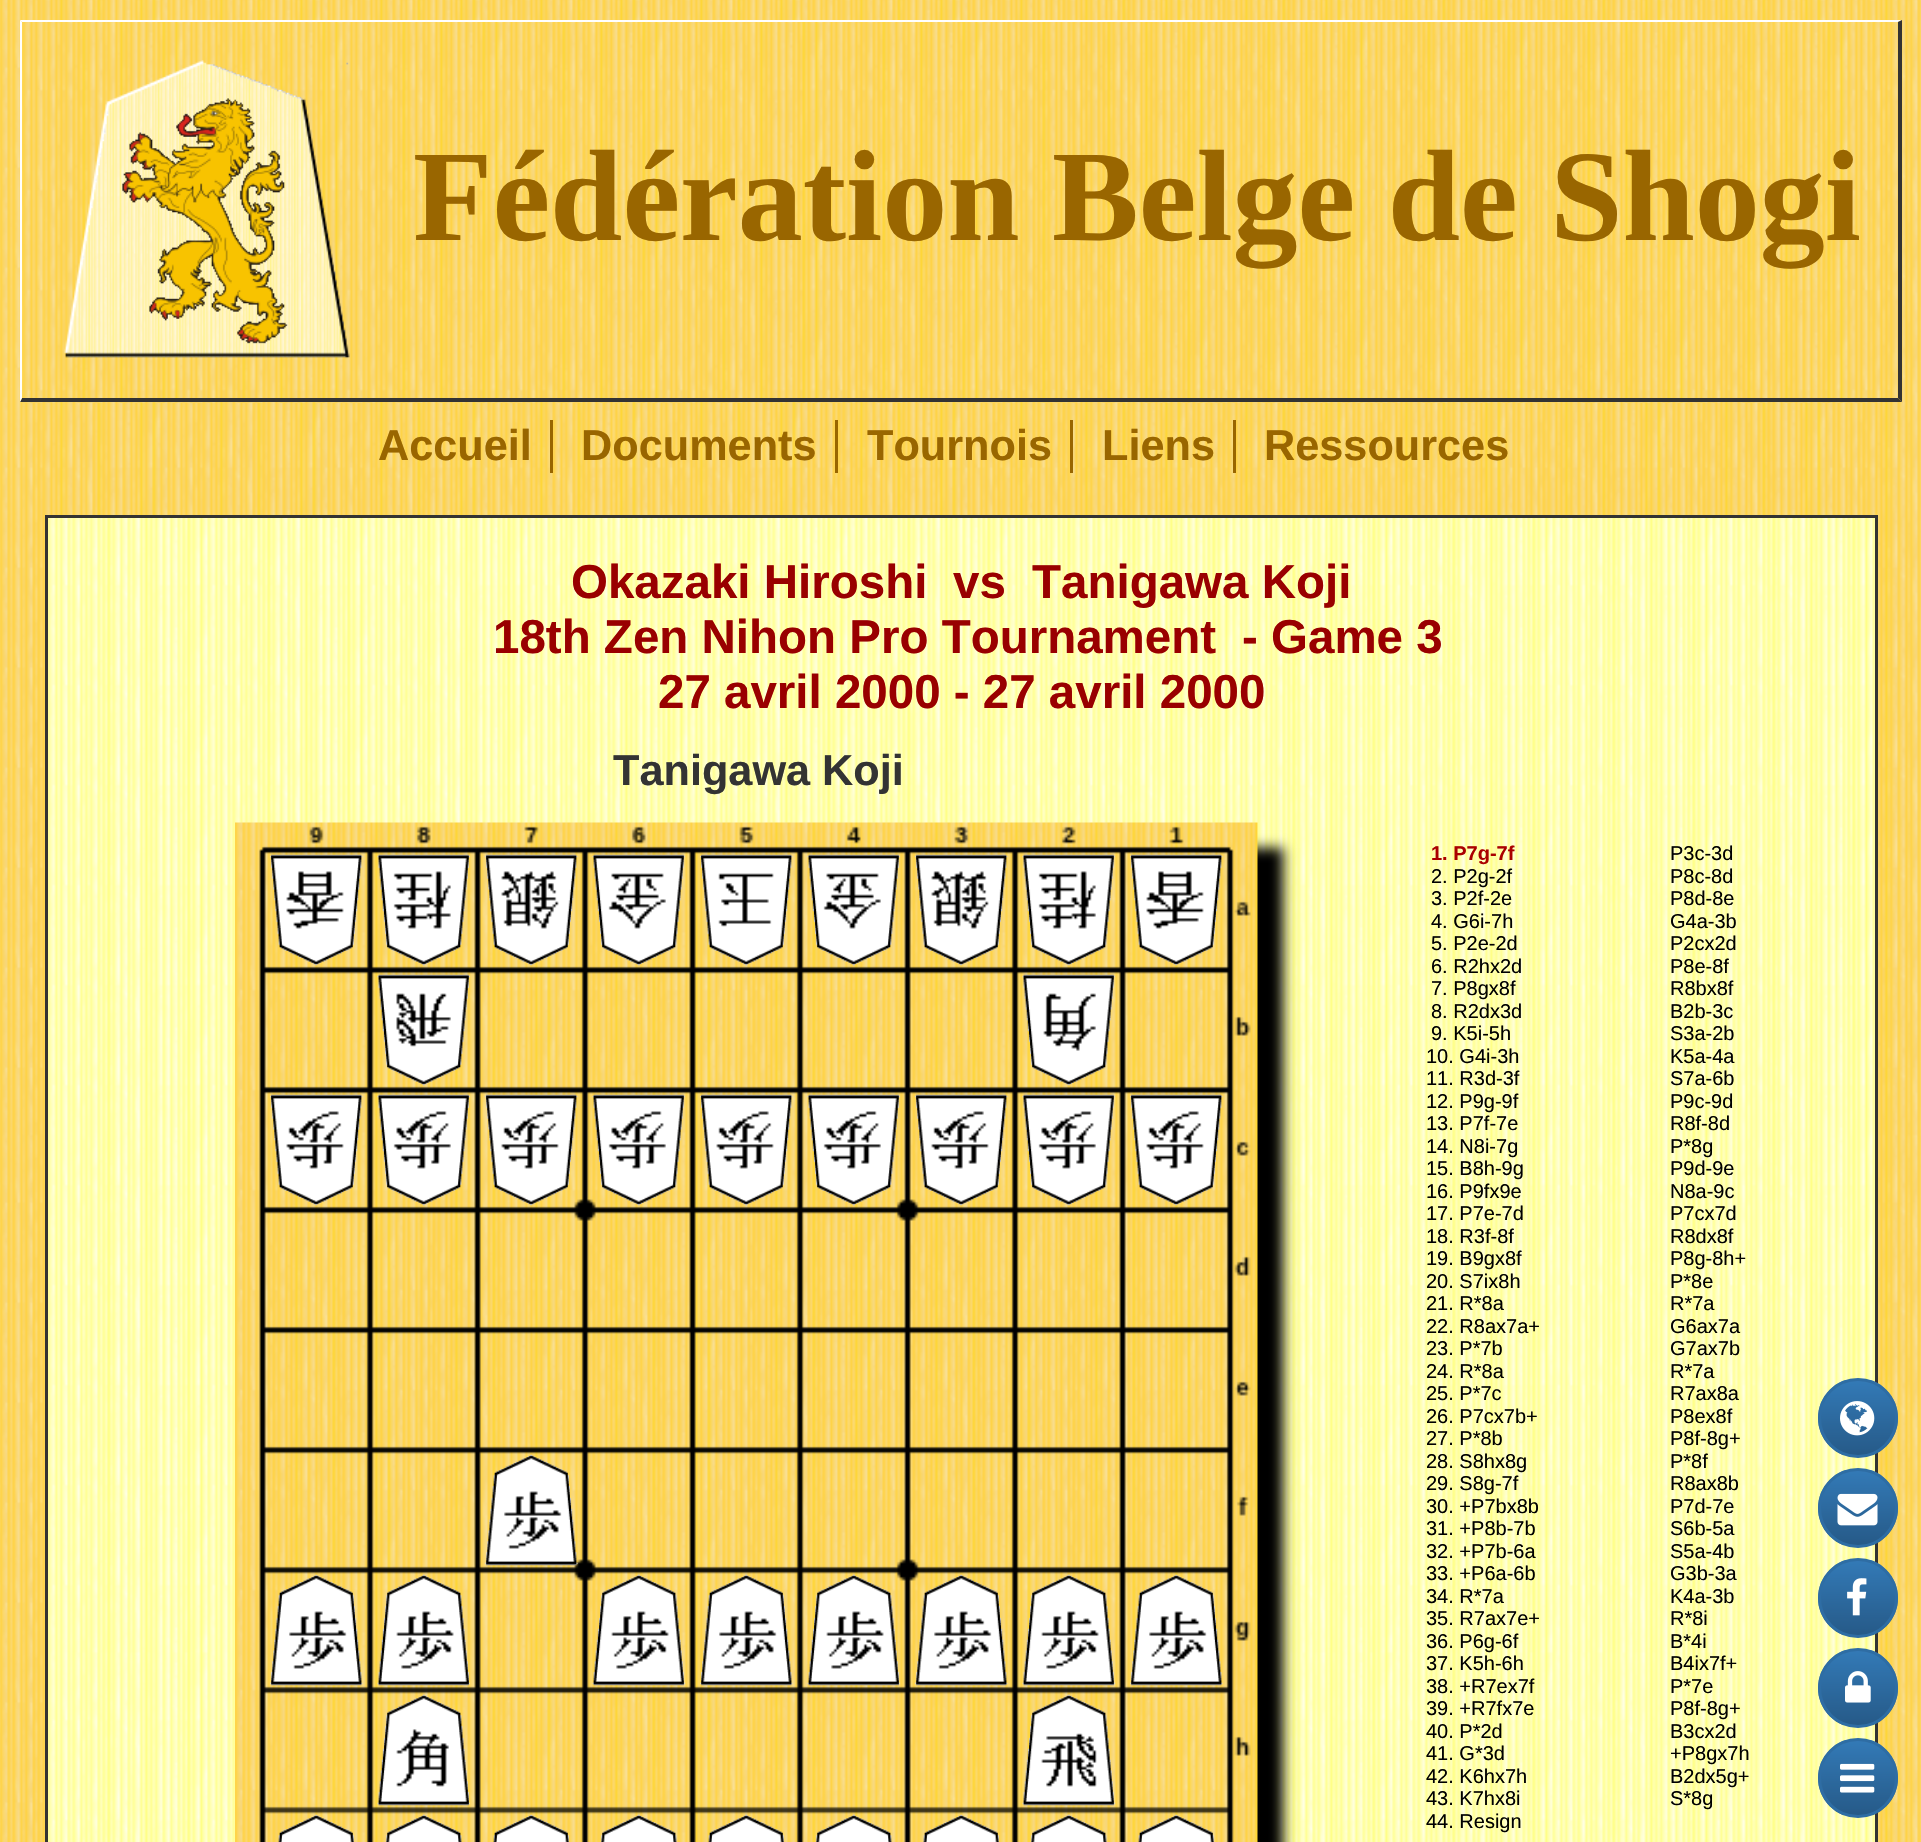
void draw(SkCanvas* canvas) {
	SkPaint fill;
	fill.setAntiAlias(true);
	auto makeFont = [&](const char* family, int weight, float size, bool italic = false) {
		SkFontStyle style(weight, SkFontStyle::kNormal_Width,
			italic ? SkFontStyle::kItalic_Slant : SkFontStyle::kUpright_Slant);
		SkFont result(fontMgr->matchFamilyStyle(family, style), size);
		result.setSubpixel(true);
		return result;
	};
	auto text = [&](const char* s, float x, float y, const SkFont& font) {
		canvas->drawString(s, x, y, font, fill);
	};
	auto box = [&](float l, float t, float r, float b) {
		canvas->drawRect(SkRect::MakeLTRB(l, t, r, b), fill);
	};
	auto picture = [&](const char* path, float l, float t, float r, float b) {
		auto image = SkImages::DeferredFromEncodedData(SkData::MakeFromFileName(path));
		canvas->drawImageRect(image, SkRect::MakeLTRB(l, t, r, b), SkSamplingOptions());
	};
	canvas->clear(0xFFFFFFFF);
	picture("image0.png", 0, 0, 1921, 1842);
	picture("image1.png", 20, 20, 1903, 403);
	fill.setColor(0xFFFFFFFF);
	canvas->drawPath(SkPathBuilder().moveTo(20, 20).lineTo(1902, 20).lineTo(1898, 22).lineTo(22, 22).close().detach(), fill);
	fill.setColor(0xFF333333);
	canvas->drawPath(SkPathBuilder().moveTo(1902, 20).lineTo(1902, 402).lineTo(1898, 398).lineTo(1898, 22).close().detach(), fill);
	canvas->drawPath(SkPathBuilder().moveTo(1902, 402).lineTo(20, 402).lineTo(22, 398).lineTo(1898, 398).close().detach(), fill);
	fill.setColor(0xFFFFFFFF);
	canvas->drawPath(SkPathBuilder().moveTo(20, 402).lineTo(20, 20).lineTo(22, 22).lineTo(22, 398).close().detach(), fill);
	picture("image2.png", 64, 60, 350, 359);
	fill.setColor(0xFF996600);
	box(550, 420, 553, 473);
	box(835, 420, 838, 473);
	box(1070, 420, 1073, 473);
	box(1233, 420, 1236, 473);
	picture("image3.png", 48, 518, 1875, 1842);
	fill.setStyle(SkPaint::kStroke_Style);
	fill.setStrokeWidth(3);
	fill.setColor(0xFF333333);
	canvas->drawRect(SkRect::MakeLTRB(46.5f, 516.5f, 1876.5f, 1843.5f), fill);
	fill.setStyle(SkPaint::kFill_Style);
	fill.setColor(0xFF000000);
	fill.setMaskFilter(SkMaskFilter::MakeBlur(kNormal_SkBlurStyle, 6));
	canvas->drawRect(SkRect::MakeLTRB(260, 848, 1283, 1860), fill);
	fill.setMaskFilter(nullptr);
	picture("image4.png", 235, 822, 1258, 1842);
	picture("image5.png", 259, 826, 1251, 1842);
	picture("image6.png", 269, 854, 363, 966);
	picture("image7.png", 286, 871, 344, 929);
	picture("image8.png", 377, 854, 470, 966);
	picture("image9.png", 393, 871, 451, 929);
	picture("image10.png", 484, 854, 578, 966);
	picture("image11.png", 501, 871, 559, 929);
	picture("image12.png", 592, 854, 685, 966);
	picture("image13.png", 608, 873, 666, 929);
	picture("image14.png", 699, 854, 793, 966);
	picture("image15.png", 718, 873, 774, 927);
	picture("image16.png", 807, 854, 900, 966);
	picture("image13.png", 823, 873, 881, 929);
	picture("image17.png", 914, 854, 1008, 966);
	picture("image11.png", 931, 871, 989, 929);
	picture("image18.png", 1022, 854, 1115, 966);
	picture("image9.png", 1038, 871, 1096, 929);
	picture("image19.png", 1129, 854, 1223, 966);
	picture("image7.png", 1146, 871, 1204, 929);
	picture("image20.png", 377, 974, 470, 1086);
	picture("image21.png", 396, 993, 451, 1047);
	picture("image22.png", 1022, 974, 1115, 1086);
	picture("image23.png", 1043, 993, 1096, 1051);
	picture("image24.png", 269, 1094, 363, 1206);
	picture("image25.png", 286, 1111, 344, 1169);
	picture("image26.png", 377, 1094, 470, 1206);
	picture("image27.png", 393, 1111, 451, 1169);
	picture("image28.png", 484, 1094, 578, 1206);
	picture("image25.png", 501, 1111, 559, 1169);
	picture("image29.png", 592, 1094, 685, 1206);
	picture("image30.png", 608, 1111, 666, 1169);
	picture("image31.png", 699, 1094, 793, 1206);
	picture("image25.png", 716, 1111, 774, 1169);
	picture("image32.png", 807, 1094, 900, 1206);
	picture("image30.png", 823, 1111, 881, 1169);
	picture("image33.png", 914, 1094, 1008, 1206);
	picture("image25.png", 931, 1111, 989, 1169);
	picture("image34.png", 1022, 1094, 1115, 1206);
	picture("image27.png", 1038, 1111, 1096, 1169);
	picture("image35.png", 1129, 1094, 1223, 1206);
	picture("image25.png", 1146, 1111, 1204, 1169);
	picture("image36.png", 485, 1454, 578, 1566);
	picture("image37.png", 504, 1491, 562, 1549);
	picture("image38.png", 270, 1574, 363, 1686);
	picture("image37.png", 289, 1611, 347, 1669);
	picture("image39.png", 377, 1574, 471, 1686);
	picture("image40.png", 396, 1611, 454, 1669);
	picture("image41.png", 592, 1574, 686, 1686);
	picture("image40.png", 611, 1611, 669, 1669);
	picture("image42.png", 700, 1574, 793, 1686);
	picture("image43.png", 719, 1611, 777, 1669);
	picture("image44.png", 807, 1574, 901, 1686);
	picture("image40.png", 826, 1611, 884, 1669);
	picture("image45.png", 915, 1574, 1008, 1686);
	picture("image37.png", 934, 1611, 992, 1669);
	picture("image46.png", 1022, 1574, 1116, 1686);
	picture("image40.png", 1041, 1611, 1099, 1669);
	picture("image47.png", 1130, 1574, 1223, 1686);
	picture("image43.png", 1149, 1611, 1207, 1669);
	picture("image48.png", 377, 1694, 471, 1806);
	picture("image49.png", 396, 1729, 449, 1787);
	picture("image50.png", 1022, 1694, 1116, 1806);
	picture("image51.png", 1041, 1733, 1097, 1787);
	picture("image52.png", 278, 1814, 354, 1842);
	picture("image53.png", 386, 1814, 462, 1842);
	picture("image54.png", 493, 1814, 569, 1842);
	picture("image55.png", 601, 1814, 677, 1842);
	picture("image56.png", 708, 1814, 784, 1842);
	picture("image57.png", 816, 1814, 892, 1842);
	picture("image58.png", 923, 1814, 999, 1842);
	picture("image59.png", 1031, 1814, 1107, 1842);
	picture("image60.png", 1138, 1814, 1214, 1842);
	canvas->save();
	canvas->clipPath(SkPathBuilder().moveTo(1858, 1378).cubicTo(1880, 1378, 1898, 1396, 1898, 1418).cubicTo(1898, 1440, 1880, 1458, 1858, 1458).cubicTo(1836, 1458, 1818, 1440, 1818, 1418).cubicTo(1818, 1396, 1836, 1378, 1858, 1378).close().detach(), true);
	{
		const SkColor colors[] = {0xFF337AB7, 0xFF265A88};
		const float stops[] = {0, 1};
		const SkPoint ends[] = {{1858, 1380}, {1858, 1455}};
		fill.setShader(SkGradientShader::MakeLinear(ends, colors, stops, 2, SkTileMode::kClamp));
		fill.setAlpha(255);
	}
	box(1818, 1380, 1898, 1455);
	canvas->restore();
	fill.setStyle(SkPaint::kStroke_Style);
	fill.setShader(nullptr);
	fill.setColor(0xFF2E6DA4);
	canvas->drawCircle(1858, 1418, 38.5f, fill);
	picture("image61.png", 1840, 1401, 1875, 1436);
	canvas->save();
	canvas->clipPath(SkPathBuilder().moveTo(1858, 1468).cubicTo(1880, 1468, 1898, 1486, 1898, 1508).cubicTo(1898, 1530, 1880, 1548, 1858, 1548).cubicTo(1836, 1548, 1818, 1530, 1818, 1508).cubicTo(1818, 1486, 1836, 1468, 1858, 1468).close().detach(), true);
	fill.setStyle(SkPaint::kFill_Style);
	{
		const SkColor colors[] = {0xFF337AB7, 0xFF265A88};
		const float stops[] = {0, 1};
		const SkPoint ends[] = {{1858, 1470}, {1858, 1545}};
		fill.setShader(SkGradientShader::MakeLinear(ends, colors, stops, 2, SkTileMode::kClamp));
		fill.setAlpha(255);
	}
	box(1818, 1470, 1898, 1545);
	canvas->restore();
	fill.setStyle(SkPaint::kStroke_Style);
	fill.setShader(nullptr);
	fill.setColor(0xFF2E6DA4);
	canvas->drawCircle(1858, 1508, 38.5f, fill);
	picture("image62.png", 1837, 1493, 1878, 1526);
	canvas->save();
	canvas->clipPath(SkPathBuilder().moveTo(1858, 1558).cubicTo(1880, 1558, 1898, 1576, 1898, 1598).cubicTo(1898, 1620, 1880, 1638, 1858, 1638).cubicTo(1836, 1638, 1818, 1620, 1818, 1598).cubicTo(1818, 1576, 1836, 1558, 1858, 1558).close().detach(), true);
	fill.setStyle(SkPaint::kFill_Style);
	{
		const SkColor colors[] = {0xFF337AB7, 0xFF265A88};
		const float stops[] = {0, 1};
		const SkPoint ends[] = {{1858, 1560}, {1858, 1635}};
		fill.setShader(SkGradientShader::MakeLinear(ends, colors, stops, 2, SkTileMode::kClamp));
		fill.setAlpha(255);
	}
	box(1818, 1560, 1898, 1635);
	canvas->restore();
	fill.setStyle(SkPaint::kStroke_Style);
	fill.setShader(nullptr);
	fill.setColor(0xFF2E6DA4);
	canvas->drawCircle(1858, 1598, 38.5f, fill);
	picture("image63.png", 1847, 1578, 1867, 1616);
	canvas->save();
	canvas->clipPath(SkPathBuilder().moveTo(1858, 1648).cubicTo(1880, 1648, 1898, 1666, 1898, 1688).cubicTo(1898, 1710, 1880, 1728, 1858, 1728).cubicTo(1836, 1728, 1818, 1710, 1818, 1688).cubicTo(1818, 1666, 1836, 1648, 1858, 1648).close().detach(), true);
	fill.setStyle(SkPaint::kFill_Style);
	{
		const SkColor colors[] = {0xFF337AB7, 0xFF265A88};
		const float stops[] = {0, 1};
		const SkPoint ends[] = {{1858, 1650}, {1858, 1725}};
		fill.setShader(SkGradientShader::MakeLinear(ends, colors, stops, 2, SkTileMode::kClamp));
		fill.setAlpha(255);
	}
	box(1818, 1650, 1898, 1725);
	canvas->restore();
	fill.setStyle(SkPaint::kStroke_Style);
	fill.setShader(nullptr);
	fill.setColor(0xFF2E6DA4);
	canvas->drawCircle(1858, 1688, 38.5f, fill);
	picture("image64.png", 1845, 1671, 1871, 1703);
	canvas->save();
	canvas->clipPath(SkPathBuilder().moveTo(1858, 1738).cubicTo(1880, 1738, 1898, 1756, 1898, 1778).cubicTo(1898, 1800, 1880, 1818, 1858, 1818).cubicTo(1836, 1818, 1818, 1800, 1818, 1778).cubicTo(1818, 1756, 1836, 1738, 1858, 1738).close().detach(), true);
	fill.setStyle(SkPaint::kFill_Style);
	{
		const SkColor colors[] = {0xFF337AB7, 0xFF265A88};
		const float stops[] = {0, 1};
		const SkPoint ends[] = {{1858, 1740}, {1858, 1815}};
		fill.setShader(SkGradientShader::MakeLinear(ends, colors, stops, 2, SkTileMode::kClamp));
		fill.setAlpha(255);
	}
	box(1818, 1740, 1898, 1815);
	canvas->restore();
	fill.setStyle(SkPaint::kStroke_Style);
	fill.setShader(nullptr);
	fill.setColor(0xFF2E6DA4);
	canvas->drawCircle(1858, 1778, 38.5f, fill);
	picture("image65.png", 1840, 1763, 1875, 1793);
	auto font1 = makeFont("Liberation Serif", 700, 130);
	fill.setStyle(SkPaint::kFill_Style);
	fill.setColor(0xFF996600);
	text("Fédération Belge de Shogi", 413, 240, font1);
	auto font2 = makeFont("Liberation Sans", 700, 43.25f);
	text("Accueil", 378, 460, font2);
	text("Documents", 581, 460, font2);
	text("Tournois", 867, 460, font2);
	text("Liens", 1102, 460, font2);
	text("Ressources", 1264, 460, font2);
	auto font3 = makeFont("Liberation Sans", 700, 47.5f);
	fill.setColor(0xFF990000);
	text("Okazaki Hiroshi", 571, 598, font3);
	text("vs", 953, 598, font3);
	text("Tanigawa Koji", 1032, 598, font3);
	text("18th Zen Nihon Pro Tournament", 493, 653, font3);
	text("- Game 3", 1242, 653, font3);
	text("27 avril 2000 - 27 avril 2000", 658, 708, font3);
	fill.setColor(0xFF333333);
	text("Tanigawa Koji", 613, 785, font2);
	auto font4 = makeFont("Liberation Sans", 700, 20);
	fill.setColor(0xFFAA0000);
	text("1. P7g-7f", 1431, 860, font4);
	auto font5 = makeFont("Liberation Sans", 400, 20);
	fill.setColor(0xFF000000);
	text("P3c-3d", 1670, 860, font5);
	text("2. P2g-2f", 1431, 883, font5);
	text("P8c-8d", 1670, 883, font5);
	text("3. P2f-2e", 1431, 905, font5);
	text("P8d-8e", 1670, 905, font5);
	text("4. G6i-7h", 1431, 928, font5);
	text("G4a-3b", 1670, 928, font5);
	text("5. P2e-2d", 1431, 950, font5);
	text("P2cx2d", 1670, 950, font5);
	text("6. R2hx2d", 1431, 973, font5);
	text("P8e-8f", 1670, 973, font5);
	text("7. P8gx8f", 1431, 995, font5);
	text("R8bx8f", 1670, 995, font5);
	text("8. R2dx3d", 1431, 1018, font5);
	text("B2b-3c", 1670, 1018, font5);
	text("9. K5i-5h", 1431, 1040, font5);
	text("S3a-2b", 1670, 1040, font5);
	text("10. G4i-3h", 1426, 1063, font5);
	text("K5a-4a", 1670, 1063, font5);
	text("11. R3d-3f", 1426, 1085, font5);
	text("S7a-6b", 1670, 1085, font5);
	text("12. P9g-9f", 1426, 1108, font5);
	text("P9c-9d", 1670, 1108, font5);
	text("13. P7f-7e", 1426, 1130, font5);
	text("R8f-8d", 1670, 1130, font5);
	text("14. N8i-7g", 1426, 1153, font5);
	text("P*8g", 1670, 1153, font5);
	text("15. B8h-9g", 1426, 1175, font5);
	text("P9d-9e", 1670, 1175, font5);
	text("16. P9fx9e", 1426, 1198, font5);
	text("N8a-9c", 1670, 1198, font5);
	text("17. P7e-7d", 1426, 1220, font5);
	text("P7cx7d", 1670, 1220, font5);
	text("18. R3f-8f", 1426, 1243, font5);
	text("R8dx8f", 1670, 1243, font5);
	text("19. B9gx8f", 1426, 1265, font5);
	text("P8g-8h+", 1670, 1265, font5);
	text("20. S7ix8h", 1426, 1288, font5);
	text("P*8e", 1670, 1288, font5);
	text("21. R*8a", 1426, 1310, font5);
	text("R*7a", 1670, 1310, font5);
	text("22. R8ax7a+", 1426, 1333, font5);
	text("G6ax7a", 1670, 1333, font5);
	text("23. P*7b", 1426, 1355, font5);
	text("G7ax7b", 1670, 1355, font5);
	text("24. R*8a", 1426, 1378, font5);
	text("R*7a", 1670, 1378, font5);
	text("25. P*7c", 1426, 1400, font5);
	text("R7ax8a", 1670, 1400, font5);
	text("26. P7cx7b+", 1426, 1423, font5);
	text("P8ex8f", 1670, 1423, font5);
	text("27. P*8b", 1426, 1445, font5);
	text("P8f-8g+", 1670, 1445, font5);
	text("28. S8hx8g", 1426, 1468, font5);
	text("P*8f", 1670, 1468, font5);
	text("29. S8g-7f", 1426, 1490, font5);
	text("R8ax8b", 1670, 1490, font5);
	text("30. +P7bx8b", 1426, 1513, font5);
	text("P7d-7e", 1670, 1513, font5);
	text("31. +P8b-7b", 1426, 1535, font5);
	text("S6b-5a", 1670, 1535, font5);
	text("32. +P7b-6a", 1426, 1558, font5);
	text("S5a-4b", 1670, 1558, font5);
	text("33. +P6a-6b", 1426, 1580, font5);
	text("G3b-3a", 1670, 1580, font5);
	text("34. R*7a", 1426, 1603, font5);
	text("K4a-3b", 1670, 1603, font5);
	text("35. R7ax7e+", 1426, 1625, font5);
	text("R*8i", 1670, 1625, font5);
	text("36. P6g-6f", 1426, 1648, font5);
	text("B*4i", 1670, 1648, font5);
	text("37. K5h-6h", 1426, 1670, font5);
	text("B4ix7f+", 1670, 1670, font5);
	text("38. +R7ex7f", 1426, 1693, font5);
	text("P*7e", 1670, 1693, font5);
	text("39. +R7fx7e", 1426, 1715, font5);
	text("P8f-8g+", 1670, 1715, font5);
	text("40. P*2d", 1426, 1738, font5);
	text("B3cx2d", 1670, 1738, font5);
	text("41. G*3d", 1426, 1760, font5);
	text("+P8gx7h", 1670, 1760, font5);
	text("42. K6hx7h", 1426, 1783, font5);
	text("B2dx5g+", 1670, 1783, font5);
	text("43. K7hx8i", 1426, 1805, font5);
	text("S*8g", 1670, 1805, font5);
	text("44. Resign", 1426, 1828, font5);
}
